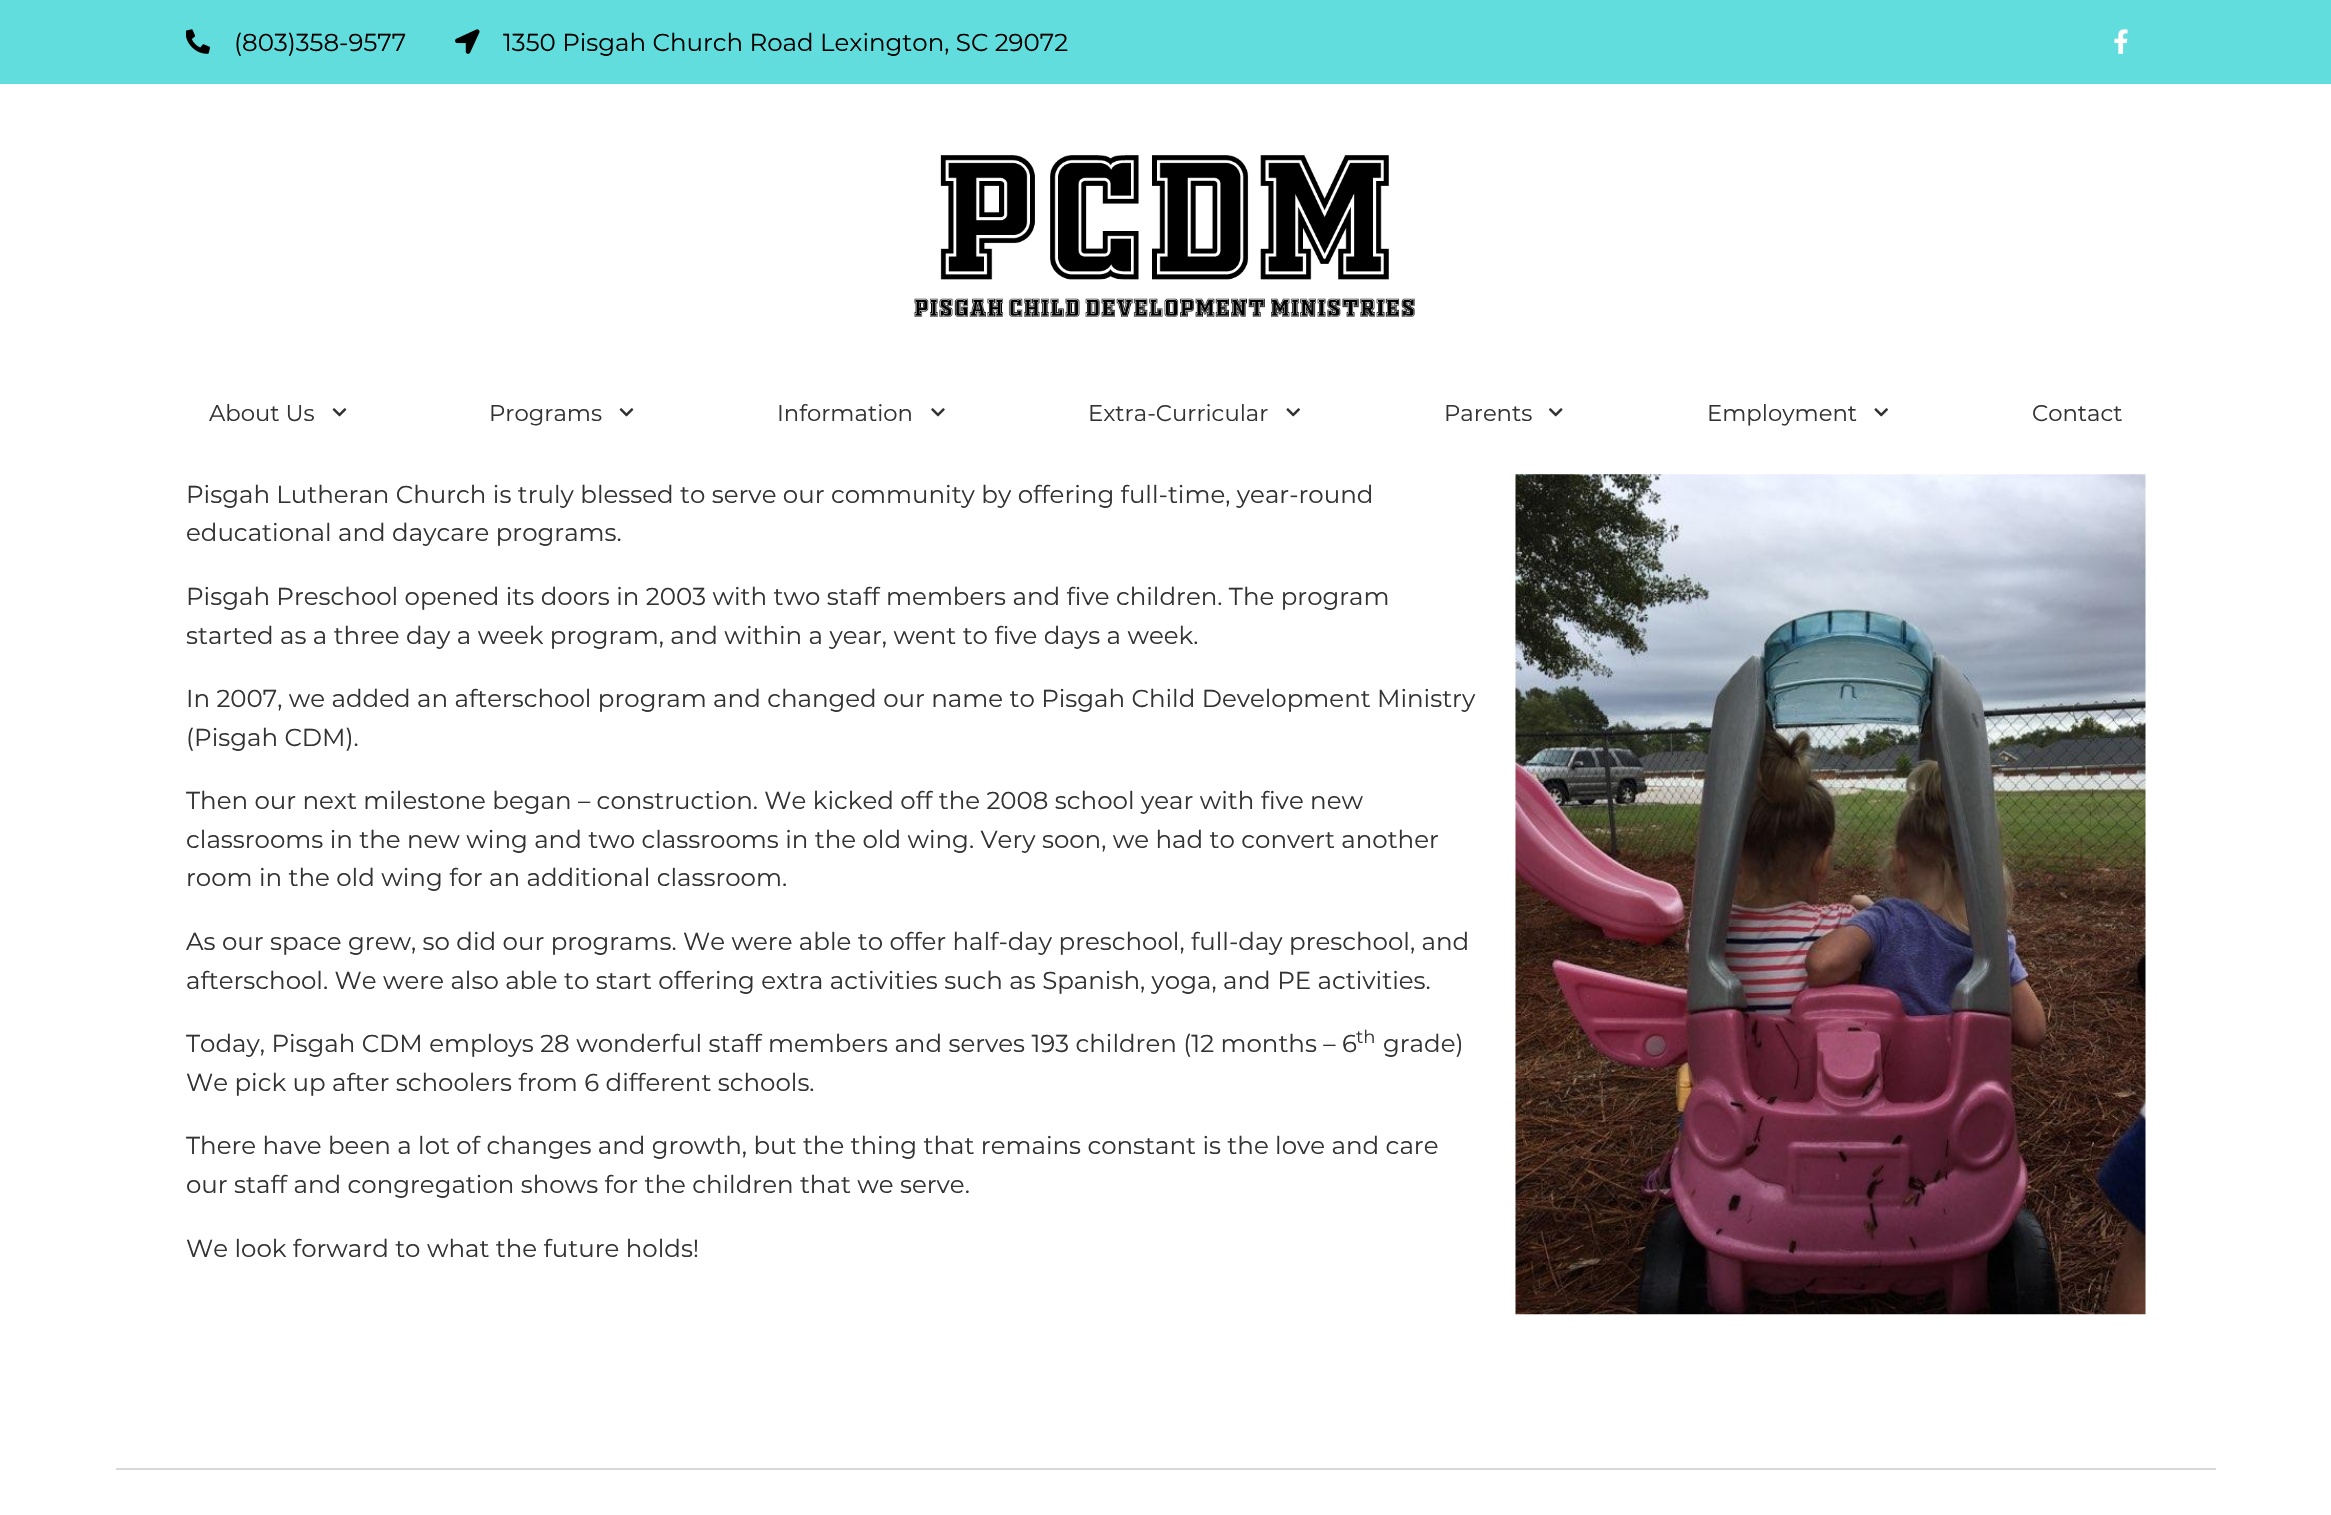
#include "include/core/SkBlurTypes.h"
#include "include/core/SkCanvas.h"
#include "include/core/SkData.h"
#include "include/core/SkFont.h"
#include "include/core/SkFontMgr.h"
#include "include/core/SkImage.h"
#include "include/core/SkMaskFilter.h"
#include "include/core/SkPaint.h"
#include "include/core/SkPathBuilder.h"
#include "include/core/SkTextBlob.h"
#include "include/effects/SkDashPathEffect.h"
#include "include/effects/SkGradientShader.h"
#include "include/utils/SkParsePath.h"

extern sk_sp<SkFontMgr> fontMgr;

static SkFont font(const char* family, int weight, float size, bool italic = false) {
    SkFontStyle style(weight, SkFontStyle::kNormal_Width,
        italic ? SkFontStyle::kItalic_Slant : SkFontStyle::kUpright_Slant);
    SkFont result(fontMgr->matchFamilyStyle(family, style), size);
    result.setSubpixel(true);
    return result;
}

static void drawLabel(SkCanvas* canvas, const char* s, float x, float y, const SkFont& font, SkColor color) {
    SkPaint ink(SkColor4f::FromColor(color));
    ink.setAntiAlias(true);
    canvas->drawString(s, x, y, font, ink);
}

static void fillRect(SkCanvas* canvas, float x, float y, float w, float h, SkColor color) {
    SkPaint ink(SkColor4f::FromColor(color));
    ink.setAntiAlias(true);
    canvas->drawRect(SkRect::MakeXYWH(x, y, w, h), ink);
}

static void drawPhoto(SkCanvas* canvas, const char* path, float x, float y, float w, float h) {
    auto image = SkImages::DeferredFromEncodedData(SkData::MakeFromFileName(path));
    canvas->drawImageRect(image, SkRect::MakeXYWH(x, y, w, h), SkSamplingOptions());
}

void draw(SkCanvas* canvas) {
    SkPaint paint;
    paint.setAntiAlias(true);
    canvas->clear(0xFFFFFFFF);
    fillRect(canvas, 0, 0, 2331, 84, 0xFF61DDDD);
    drawPhoto(canvas, "assets/img1.png", 186, 29, 24, 25);
    SkFont font1 = font("Montserrat", 400, 24.5f);
    drawLabel(canvas, "(803)358-9577", 234, 51, font1, 0xFF000000);
    drawPhoto(canvas, "assets/img2.png", 455, 29, 25, 25);
    drawLabel(canvas, "1350 Pisgah Church Road Lexington, SC 29072", 503, 51, font1, 0xFF000000);
    drawPhoto(canvas, "assets/img3.png", 2114, 29, 14, 25);
    drawPhoto(canvas, "assets/img4.png", 914, 155, 501, 162);
    SkFont font2 = font("Montserrat", 400, 22.75f);
    drawLabel(canvas, "About Us", 209, 421, font2, 0xFF333333);
    drawPhoto(canvas, "assets/img5.png", 332, 408, 15, 9);
    drawLabel(canvas, "Programs", 489, 421, font2, 0xFF333333);
    drawPhoto(canvas, "assets/img5.png", 619, 408, 15, 9);
    drawLabel(canvas, "Information", 777, 421, font2, 0xFF333333);
    drawPhoto(canvas, "assets/img6.png", 931, 408, 14, 9);
    drawLabel(canvas, "Extra-Curricular", 1088, 421, font2, 0xFF333333);
    drawPhoto(canvas, "assets/img7.png", 1286, 408, 14, 9);
    drawLabel(canvas, "Parents", 1444, 421, font2, 0xFF333333);
    drawPhoto(canvas, "assets/img8.png", 1549, 408, 14, 9);
    drawLabel(canvas, "Employment", 1707, 421, font2, 0xFF333333);
    drawPhoto(canvas, "assets/img7.png", 1874, 408, 14, 9);
    drawLabel(canvas, "Contact", 2032, 421, font2, 0xFF333333);
    drawLabel(canvas, "Pisgah Lutheran Church is truly blessed to serve our community by offering full-time, year-round", 186, 503, font1, 0xFF333333);
    drawLabel(canvas, "educational and daycare programs.", 186, 541, font1, 0xFF333333);
    drawLabel(canvas, "Pisgah Preschool opened its doors in 2003 with two staff members and five children. The program", 186, 605, font1, 0xFF333333);
    drawLabel(canvas, "started as a three day a week program, and within a year, went to five days a week.", 186, 644, font1, 0xFF333333);
    drawLabel(canvas, "In 2007, we added an afterschool program and changed our name to Pisgah Child Development Ministry", 186, 707, font1, 0xFF333333);
    drawLabel(canvas, "(Pisgah CDM).", 186, 746, font1, 0xFF333333);
    drawLabel(canvas, "Then our next milestone began – construction. We kicked off the 2008 school year with five new", 186, 809, font1, 0xFF333333);
    drawLabel(canvas, "classrooms in the new wing and two classrooms in the old wing. Very soon, we had to convert another", 186, 848, font1, 0xFF333333);
    drawLabel(canvas, "room in the old wing for an additional classroom.", 186, 886, font1, 0xFF333333);
    drawLabel(canvas, "As our space grew, so did our programs. We were able to offer half-day preschool, full-day preschool, and", 186, 950, font1, 0xFF333333);
    drawLabel(canvas, "afterschool. We were also able to start offering extra activities such as Spanish, yoga, and PE activities.", 186, 989, font1, 0xFF333333);
    drawLabel(canvas, "Today, Pisgah CDM employs 28 wonderful staff members and serves 193 children (12 months – 6", 186, 1052, font1, 0xFF333333);
    SkFont font3 = font("Montserrat", 400, 18);
    drawLabel(canvas, "th", 1356, 1043, font3, 0xFF333333);
    drawLabel(canvas, "grade)", 1383, 1052, font1, 0xFF333333);
    drawLabel(canvas, "We pick up after schoolers from 6 different schools.", 186, 1091, font1, 0xFF333333);
    drawLabel(canvas, "There have been a lot of changes and growth, but the thing that remains constant is the love and care", 186, 1154, font1, 0xFF333333);
    drawLabel(canvas, "our staff and congregation shows for the children that we serve.", 186, 1193, font1, 0xFF333333);
    drawLabel(canvas, "We look forward to what the future holds!", 186, 1257, font1, 0xFF333333);
    drawPhoto(canvas, "assets/img9.png", 1515, 474, 631, 841);
    fillRect(canvas, 116, 1468, 2100, 2, 0xFFD8D8D8);
}
